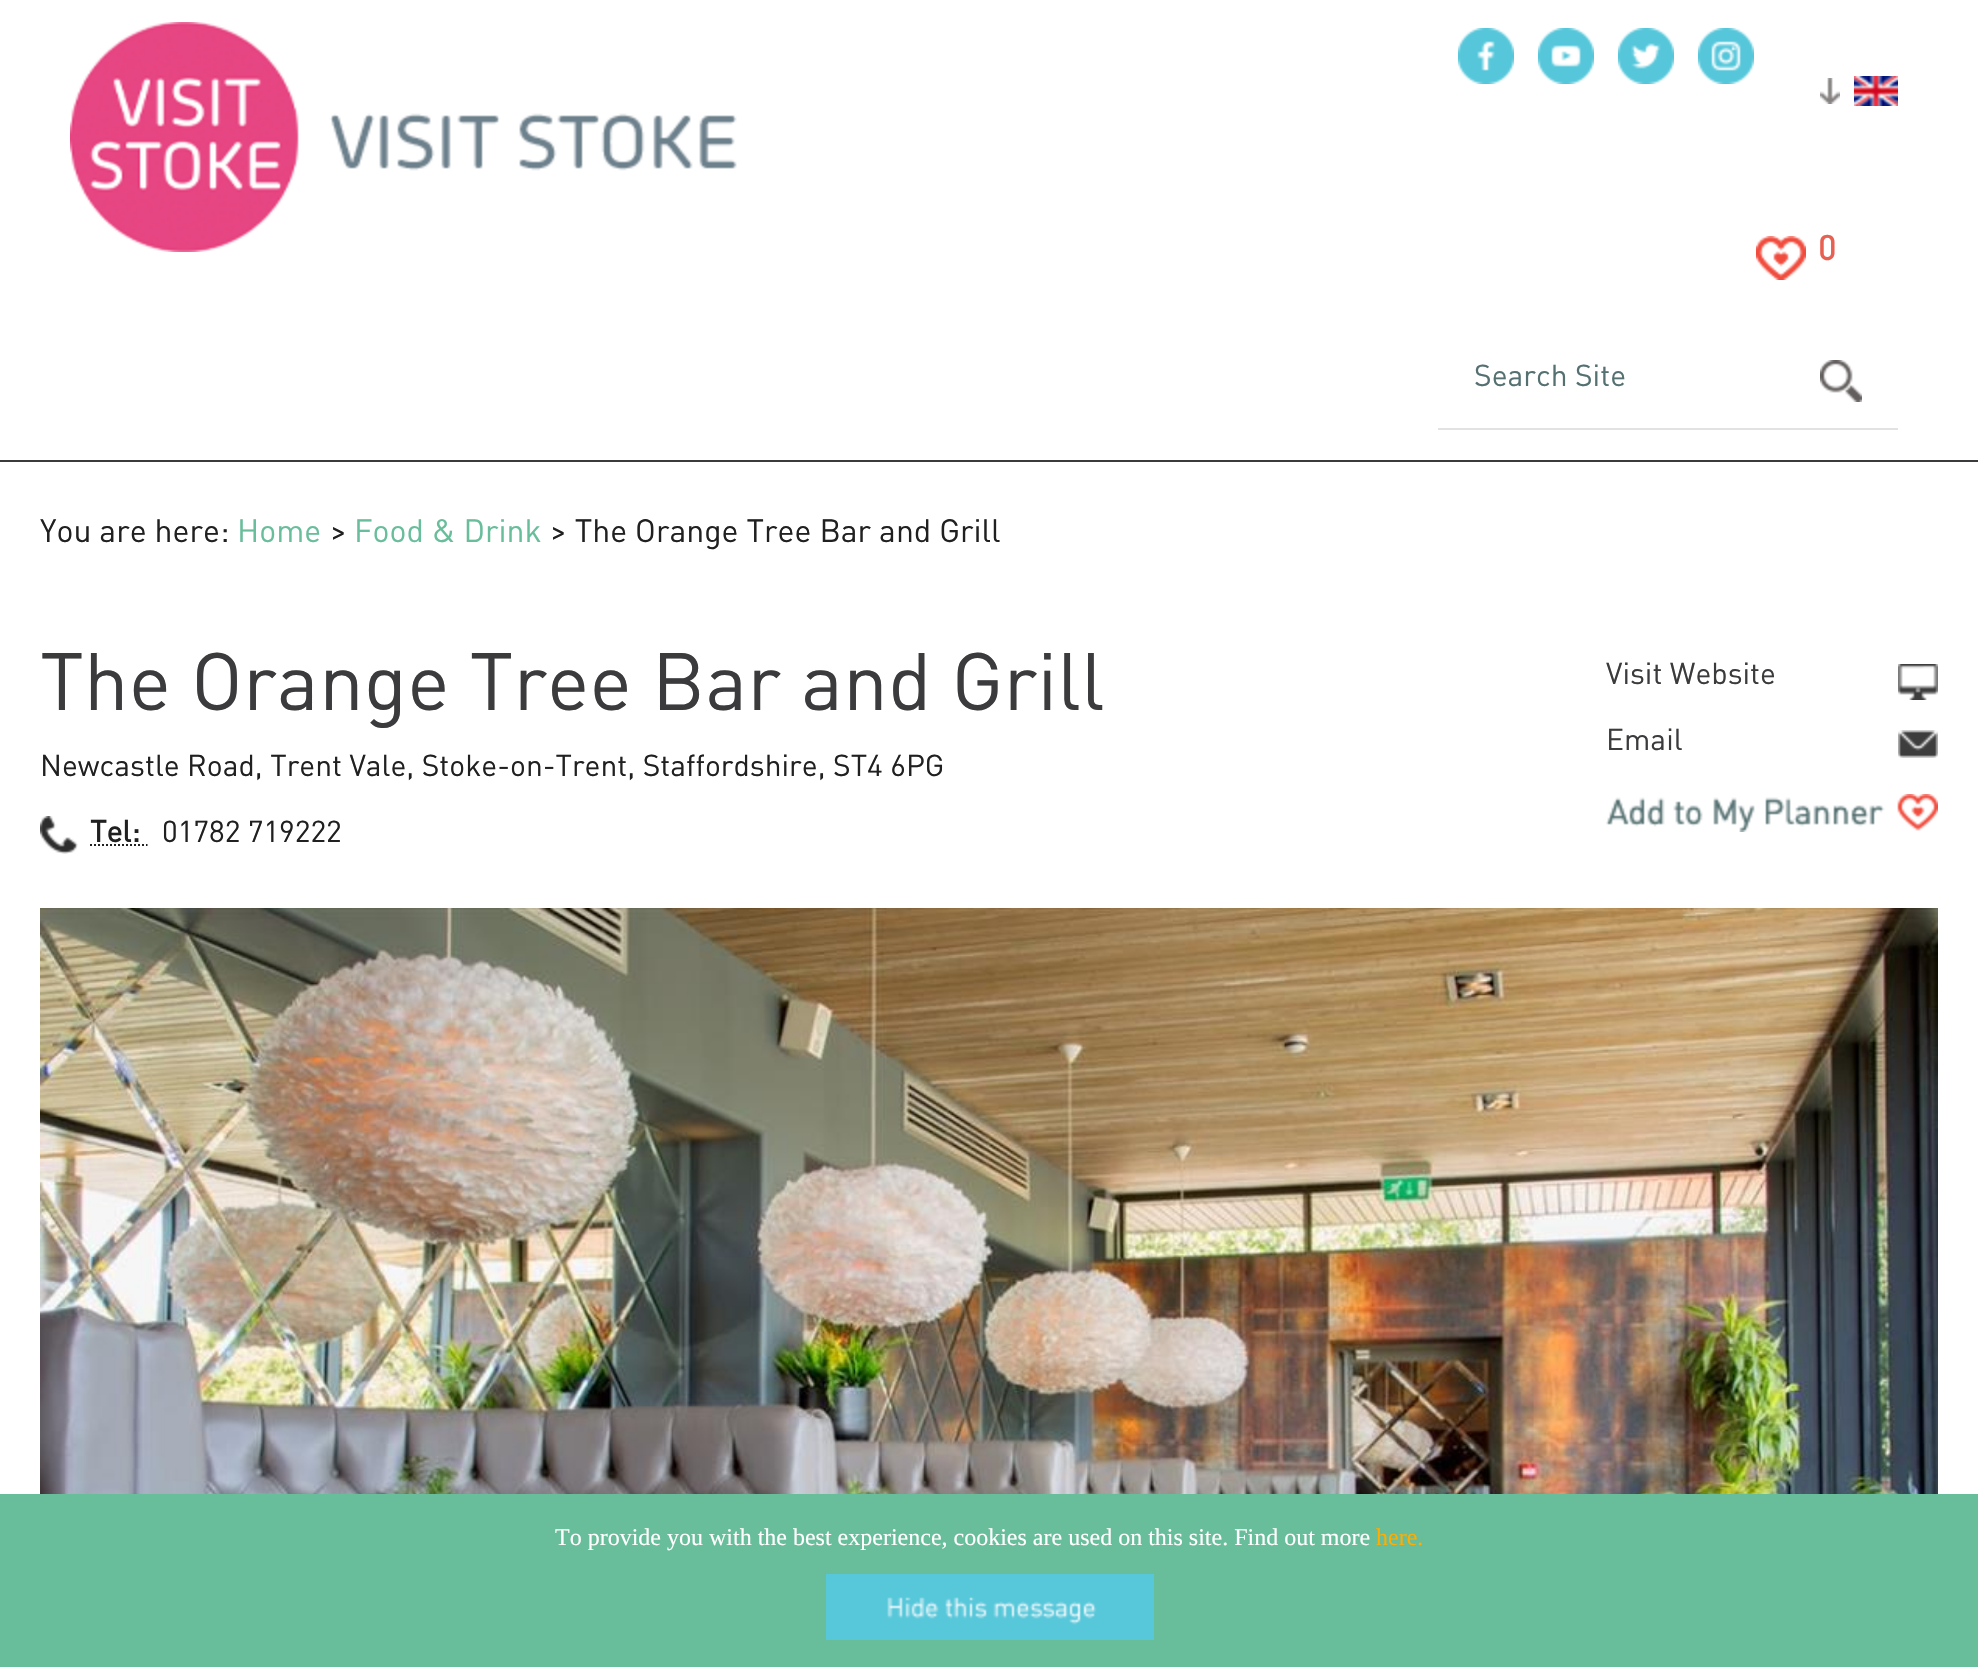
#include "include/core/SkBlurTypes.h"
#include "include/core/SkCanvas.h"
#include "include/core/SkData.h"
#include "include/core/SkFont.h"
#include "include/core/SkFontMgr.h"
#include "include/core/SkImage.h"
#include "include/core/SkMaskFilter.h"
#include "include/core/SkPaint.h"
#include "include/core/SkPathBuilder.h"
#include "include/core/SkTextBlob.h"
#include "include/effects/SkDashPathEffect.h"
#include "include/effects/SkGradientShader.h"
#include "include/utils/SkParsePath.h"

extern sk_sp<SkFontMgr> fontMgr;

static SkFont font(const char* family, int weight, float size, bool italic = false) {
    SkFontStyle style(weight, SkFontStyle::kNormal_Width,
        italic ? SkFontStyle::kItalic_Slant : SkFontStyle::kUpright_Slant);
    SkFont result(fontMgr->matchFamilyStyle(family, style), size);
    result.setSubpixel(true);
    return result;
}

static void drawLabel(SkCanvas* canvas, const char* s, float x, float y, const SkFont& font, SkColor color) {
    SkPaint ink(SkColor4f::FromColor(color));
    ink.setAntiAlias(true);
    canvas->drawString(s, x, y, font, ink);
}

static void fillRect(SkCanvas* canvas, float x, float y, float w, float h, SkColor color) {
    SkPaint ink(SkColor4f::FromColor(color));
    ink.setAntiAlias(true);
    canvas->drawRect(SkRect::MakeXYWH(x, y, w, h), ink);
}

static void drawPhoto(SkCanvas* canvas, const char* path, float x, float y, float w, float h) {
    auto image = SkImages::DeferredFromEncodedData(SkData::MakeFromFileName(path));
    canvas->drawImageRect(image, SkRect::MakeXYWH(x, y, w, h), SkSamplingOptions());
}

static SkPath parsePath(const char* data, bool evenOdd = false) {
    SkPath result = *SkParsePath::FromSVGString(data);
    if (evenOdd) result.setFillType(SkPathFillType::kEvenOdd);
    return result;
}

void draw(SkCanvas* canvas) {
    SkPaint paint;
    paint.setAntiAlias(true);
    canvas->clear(0xFFFFFFFF);
    fillRect(canvas, 0, 460, 1978, 2, 0xFF3B3B3D);
    drawPhoto(canvas, "assets/img1.png", 70, 22, 667, 230);
    drawPhoto(canvas, "assets/img2.png", 1458, 28, 56, 56);
    drawPhoto(canvas, "assets/img3.png", 1538, 28, 56, 56);
    drawPhoto(canvas, "assets/img4.png", 1618, 28, 56, 56);
    drawPhoto(canvas, "assets/img5.png", 1698, 28, 56, 56);
    drawPhoto(canvas, "assets/img6.png", 1820, 78, 20, 26);
    drawPhoto(canvas, "assets/img7.png", 1854, 76, 44, 30);
    drawPhoto(canvas, "assets/img8.png", 1756, 236, 50, 44);
    SkFont font1 = font("Din", 700, 34);
    drawLabel(canvas, "0", 1818, 260, font1, 0xFFE86052);
    fillRect(canvas, 1438, 428, 460, 2, 0xFFE2E2E2);
    SkFont font2 = font("Din", 400, 30);
    drawLabel(canvas, "Search Site", 1474, 386, font2, 0xFF557071);
    drawPhoto(canvas, "assets/img9.png", 1820, 360, 42, 42);
    SkFont font3 = font("Din", 400, 32);
    drawLabel(canvas, "You are here:", 40, 542, font3, 0xFF202020);
    drawLabel(canvas, "Home", 237, 542, font3, 0xFF68BD9B);
    drawLabel(canvas, ">", 330, 542, font3, 0xFF202020);
    drawLabel(canvas, "Food & Drink", 354, 542, font3, 0xFF68BD9B);
    drawLabel(canvas, "> The Orange Tree Bar and Grill", 550, 542, font3, 0xFF202020);
    SkFont font4 = font("Din", 400, 80);
    drawLabel(canvas, "The Orange Tree Bar and Grill", 40, 710, font4, 0xFF3B3B3D);
    drawLabel(canvas, "Newcastle Road, Trent Vale, Stoke-on-Trent, Staffordshire, ST4 6PG", 40, 776, font2, 0xFF202020);
    drawPhoto(canvas, "assets/img10.png", 40, 816, 38, 38);
    SkFont font5 = font("Din", 700, 30);
    drawLabel(canvas, "Tel:", 90, 842, font5, 0xFF202020);
    paint.setStroke(true);
    paint.setStrokeWidth(2);
    paint.setColor(0xFF202020);
    paint.setPathEffect(SkDashPathEffect::Make({{2, 2}}, 0));
    canvas->drawPath(parsePath("M90 845H147.5"), paint);
    paint.setPathEffect(nullptr);
    drawLabel(canvas, "01782 719222", 162, 842, font2, 0xFF202020);
    drawPhoto(canvas, "assets/img11.png", 1898, 664, 40, 36);
    drawLabel(canvas, "Visit Website", 1606, 684, font2, 0xFF3B3B3D);
    drawPhoto(canvas, "assets/img12.png", 1898, 730, 40, 28);
    drawLabel(canvas, "Email", 1606, 750, font2, 0xFF3B3B3D);
    drawPhoto(canvas, "assets/img13.png", 1606, 794, 332, 38);
    drawPhoto(canvas, "assets/img14.png", 40, 908, 1898, 586);
    fillRect(canvas, 0, 1494, 1978, 173, 0xFF68BD9B);
    SkFont font6 = font("Liberation Serif", 400, 24);
    drawLabel(canvas, "To provide you with the best experience, cookies are used on this site. Find out more", 555, 1545, font6, 0xFFFFFFFF);
    drawLabel(canvas, "here.", 1376, 1545, font6, 0xFFFFAD00);
    drawPhoto(canvas, "assets/img15.png", 826, 1574, 328, 66);
}
